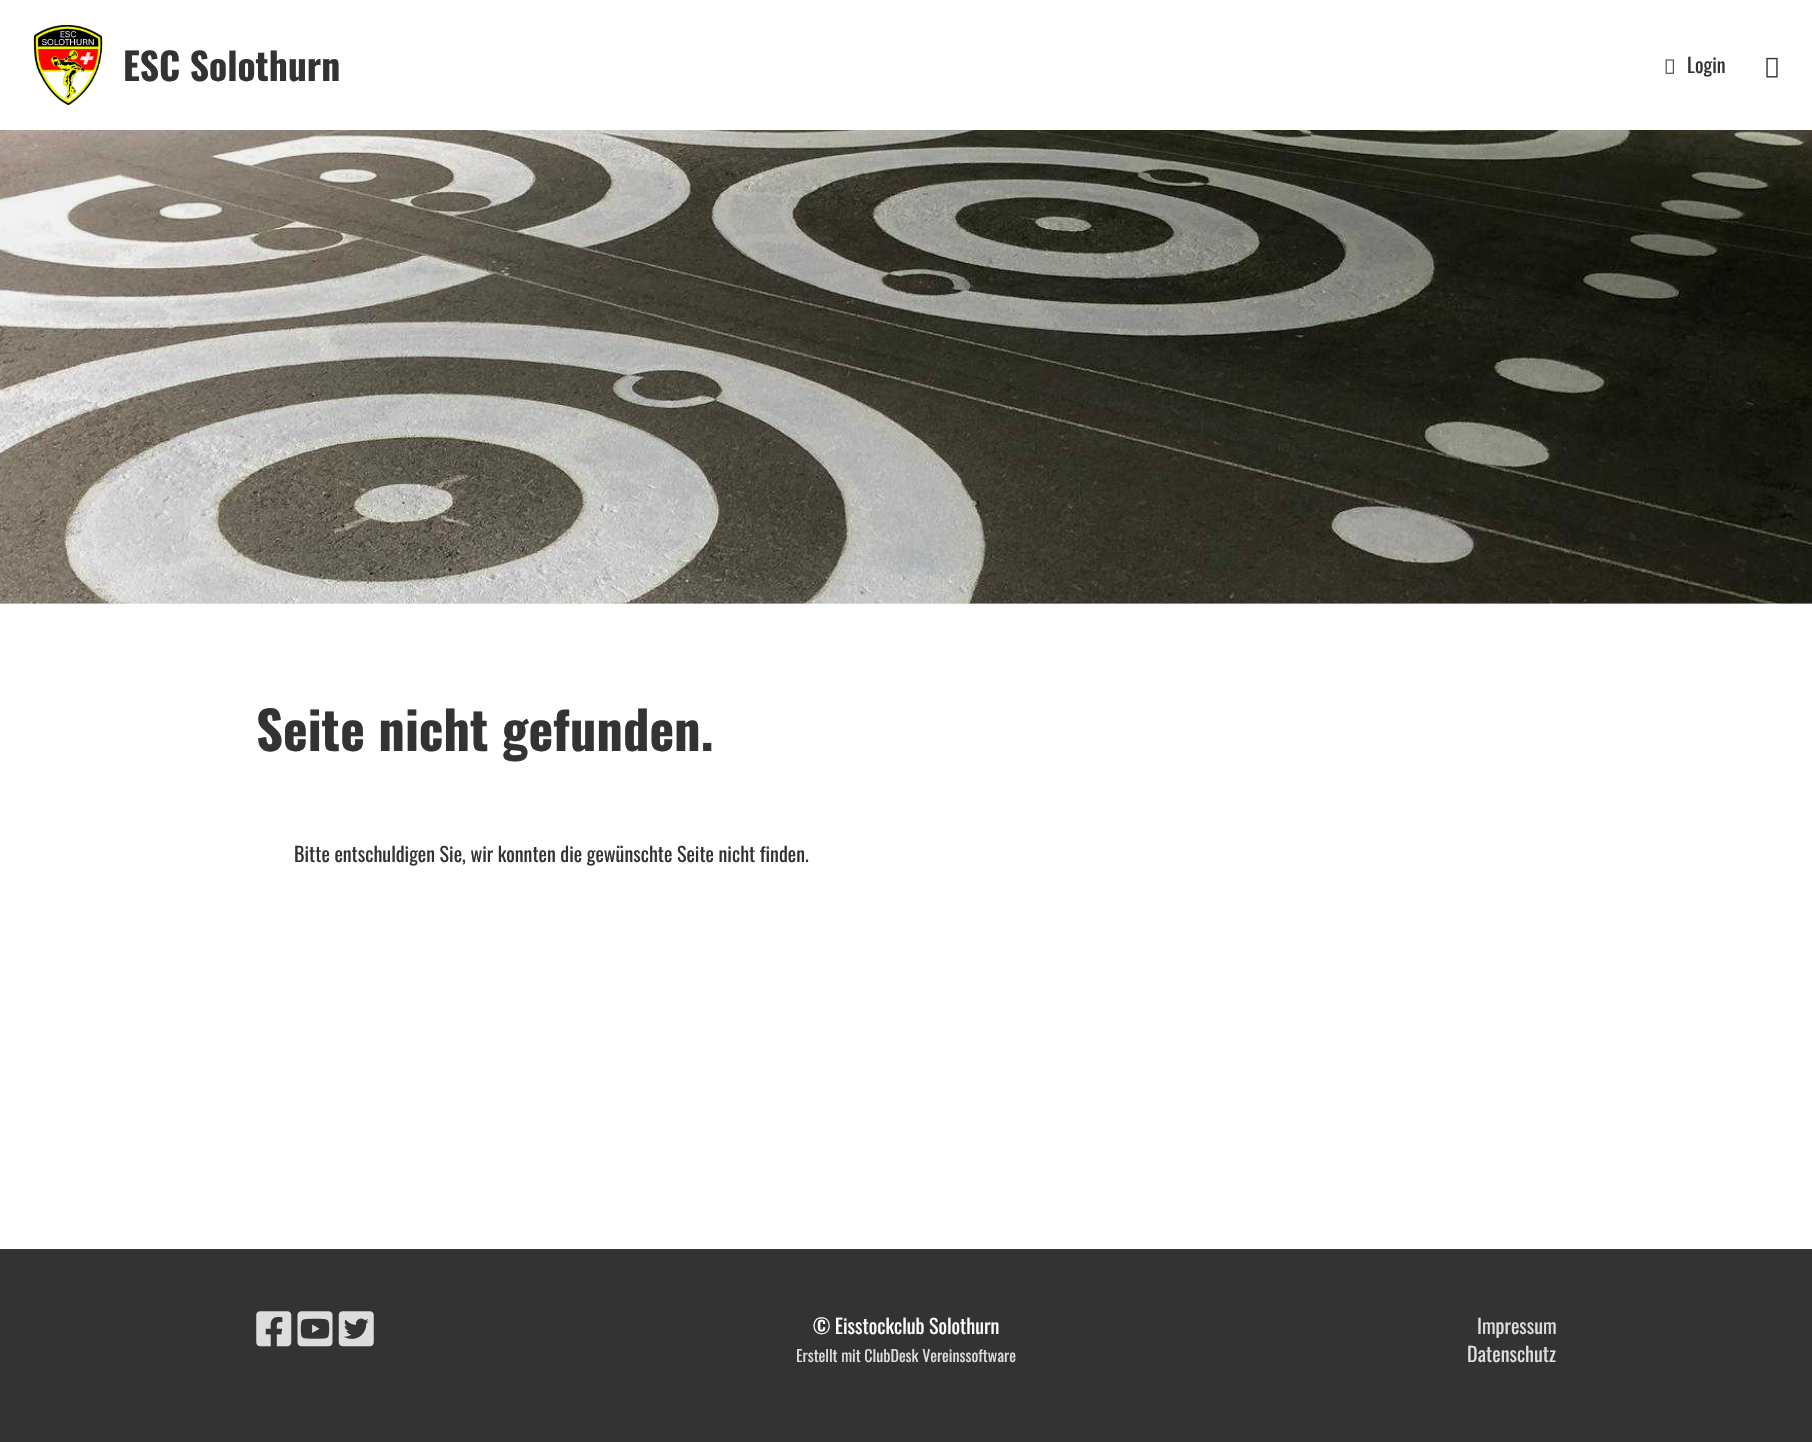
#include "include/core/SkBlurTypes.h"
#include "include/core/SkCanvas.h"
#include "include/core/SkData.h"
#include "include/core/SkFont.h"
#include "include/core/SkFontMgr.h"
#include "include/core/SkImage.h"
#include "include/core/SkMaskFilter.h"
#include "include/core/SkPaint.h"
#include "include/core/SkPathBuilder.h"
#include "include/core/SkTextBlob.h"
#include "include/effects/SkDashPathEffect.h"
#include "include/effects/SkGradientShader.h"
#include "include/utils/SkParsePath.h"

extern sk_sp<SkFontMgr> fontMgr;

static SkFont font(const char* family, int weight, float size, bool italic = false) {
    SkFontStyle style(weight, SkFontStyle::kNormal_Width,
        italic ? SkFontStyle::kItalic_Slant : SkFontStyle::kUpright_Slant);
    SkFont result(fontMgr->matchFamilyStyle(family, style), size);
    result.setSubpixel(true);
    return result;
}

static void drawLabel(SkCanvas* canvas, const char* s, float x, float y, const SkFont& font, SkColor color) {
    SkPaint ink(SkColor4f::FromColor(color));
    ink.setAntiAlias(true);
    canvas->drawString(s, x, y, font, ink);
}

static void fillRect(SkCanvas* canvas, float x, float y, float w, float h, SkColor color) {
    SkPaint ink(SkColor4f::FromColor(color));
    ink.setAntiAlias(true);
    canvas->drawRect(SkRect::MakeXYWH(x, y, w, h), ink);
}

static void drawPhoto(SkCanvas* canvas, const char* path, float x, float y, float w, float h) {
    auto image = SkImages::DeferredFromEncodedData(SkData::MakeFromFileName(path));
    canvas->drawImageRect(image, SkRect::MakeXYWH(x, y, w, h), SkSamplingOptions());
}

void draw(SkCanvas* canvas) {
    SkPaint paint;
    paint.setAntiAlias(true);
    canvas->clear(0xFFFFFFFF);
    fillRect(canvas, 0, 603, 1812, 1, 0xFFF2F2F2);
    drawPhoto(canvas, "assets/img1.png", 33, 25, 70, 80);
    SkFont font1 = font("Oswald", 700, 37.5f);
    drawLabel(canvas, "ESC Solothurn", 123, 81, font1, 0xFF333333);
    drawPhoto(canvas, "assets/img2.png", 1665, 59, 9, 15);
    SkFont font2 = font("Oswald", 400, 20);
    drawLabel(canvas, "Login", 1687, 73, font2, 0xFF333333);
    drawPhoto(canvas, "assets/img3.png", 1766, 57, 12, 21);
    drawPhoto(canvas, "assets/img4.png", 0, 130, 1812, 474);
    SkFont font3 = font("Oswald", 700, 52.5f);
    drawLabel(canvas, "Seite nicht gefunden.", 256, 751, font3, 0xFF333333);
    drawLabel(canvas, "Bitte entschuldigen Sie, wir konnten die gewünschte Seite nicht finden.", 294, 862, font2, 0xFF333333);
    fillRect(canvas, 0, 1249, 1812, 193, 0xFF333333);
    drawPhoto(canvas, "assets/img5.png", 256, 1311, 36, 36);
    drawPhoto(canvas, "assets/img6.png", 297, 1311, 36, 36);
    drawPhoto(canvas, "assets/img7.png", 338, 1311, 36, 36);
    drawLabel(canvas, "© Eisstockclub Solothurn", 813, 1334, font2, 0xFFFFFFFF);
    SkFont font4 = font("Oswald", 400, 16);
    drawLabel(canvas, "Erstellt mit ClubDesk Vereinssoftware", 796, 1362, font4, 0xFFDDDDDD);
    drawLabel(canvas, "Impressum", 1477, 1334, font2, 0xFFDDDDDD);
    drawLabel(canvas, "Datenschutz", 1467, 1362, font2, 0xFFDDDDDD);
}
